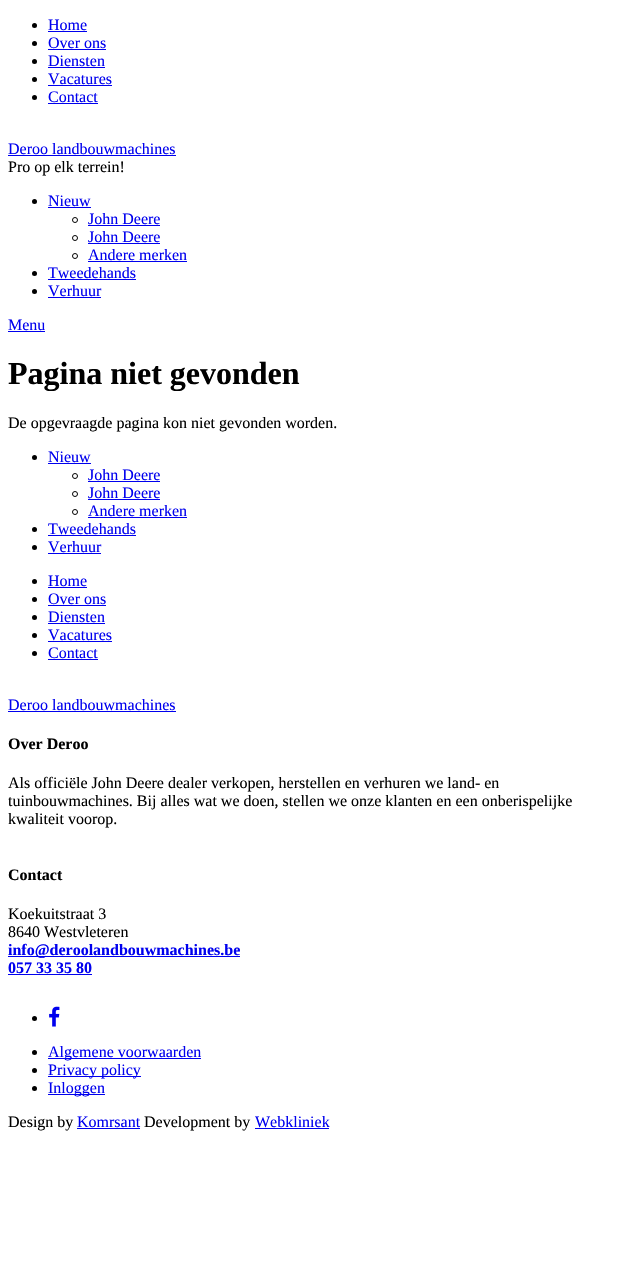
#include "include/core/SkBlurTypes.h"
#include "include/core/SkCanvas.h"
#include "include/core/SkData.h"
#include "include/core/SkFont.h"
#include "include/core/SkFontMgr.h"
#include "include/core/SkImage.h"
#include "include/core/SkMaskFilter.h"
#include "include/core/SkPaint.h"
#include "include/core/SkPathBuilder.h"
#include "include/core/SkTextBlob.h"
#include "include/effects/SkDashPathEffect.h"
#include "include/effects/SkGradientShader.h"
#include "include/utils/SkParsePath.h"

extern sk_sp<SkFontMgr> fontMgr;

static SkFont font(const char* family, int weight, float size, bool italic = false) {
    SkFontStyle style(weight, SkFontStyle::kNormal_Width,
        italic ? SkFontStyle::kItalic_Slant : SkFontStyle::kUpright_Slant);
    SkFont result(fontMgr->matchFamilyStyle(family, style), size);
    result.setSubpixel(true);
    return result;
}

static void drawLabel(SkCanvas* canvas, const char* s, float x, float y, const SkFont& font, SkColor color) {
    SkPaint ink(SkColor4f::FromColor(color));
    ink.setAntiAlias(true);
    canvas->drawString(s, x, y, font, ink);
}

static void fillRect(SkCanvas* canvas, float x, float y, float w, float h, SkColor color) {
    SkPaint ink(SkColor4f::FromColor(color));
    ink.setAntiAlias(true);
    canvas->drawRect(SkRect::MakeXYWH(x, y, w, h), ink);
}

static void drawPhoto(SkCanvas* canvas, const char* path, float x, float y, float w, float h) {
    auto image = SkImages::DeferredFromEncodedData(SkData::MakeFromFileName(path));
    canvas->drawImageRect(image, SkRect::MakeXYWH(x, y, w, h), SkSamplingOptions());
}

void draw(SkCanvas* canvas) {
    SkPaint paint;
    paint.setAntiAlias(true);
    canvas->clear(0xFFFFFFFF);
    paint.setColor(0xFF000000);
    canvas->drawCircle(34.5f, 25.5f, 2.5f, paint);
    SkFont font1 = font("Liberation Serif", 400, 16);
    drawLabel(canvas, "Home", 48, 30, font1, 0xFF0000EE);
    fillRect(canvas, 48, 31, 39, 1, 0xFF0000EE);
    canvas->drawCircle(34.5f, 43.5f, 2.5f, paint);
    drawLabel(canvas, "Over ons", 48, 48, font1, 0xFF0000EE);
    fillRect(canvas, 48, 49, 58, 1, 0xFF0000EE);
    canvas->drawCircle(34.5f, 61.5f, 2.5f, paint);
    drawLabel(canvas, "Diensten", 48, 66, font1, 0xFF0000EE);
    fillRect(canvas, 48, 67, 57, 1, 0xFF0000EE);
    canvas->drawCircle(34.5f, 79.5f, 2.5f, paint);
    drawLabel(canvas, "Vacatures", 48, 84, font1, 0xFF0000EE);
    fillRect(canvas, 48, 85, 64, 1, 0xFF0000EE);
    canvas->drawCircle(34.5f, 97.5f, 2.5f, paint);
    drawLabel(canvas, "Contact", 48, 102, font1, 0xFF0000EE);
    fillRect(canvas, 48, 103, 50, 1, 0xFF0000EE);
    drawLabel(canvas, "Deroo landbouwmachines", 8, 154, font1, 0xFF0000EE);
    fillRect(canvas, 8, 155, 168, 1, 0xFF0000EE);
    drawLabel(canvas, "Pro op elk terrein!", 8, 172, font1, 0xFF000000);
    canvas->drawCircle(34.5f, 201.5f, 2.5f, paint);
    drawLabel(canvas, "Nieuw", 48, 206, font1, 0xFF0000EE);
    fillRect(canvas, 48, 207, 43, 1, 0xFF0000EE);
    paint.setStroke(true);
    paint.setStrokeWidth(1);
    canvas->drawCircle(75, 220, 2.5f, paint);
    drawLabel(canvas, "John Deere", 88, 224, font1, 0xFF0000EE);
    fillRect(canvas, 88, 225, 72, 1, 0xFF0000EE);
    canvas->drawCircle(75, 238, 2.5f, paint);
    drawLabel(canvas, "John Deere", 88, 242, font1, 0xFF0000EE);
    fillRect(canvas, 88, 243, 72, 1, 0xFF0000EE);
    canvas->drawCircle(75, 256, 2.5f, paint);
    drawLabel(canvas, "Andere merken", 88, 260, font1, 0xFF0000EE);
    fillRect(canvas, 88, 261, 99, 1, 0xFF0000EE);
    paint.setStroke(false);
    canvas->drawCircle(34.5f, 273.5f, 2.5f, paint);
    drawLabel(canvas, "Tweedehands", 48, 278, font1, 0xFF0000EE);
    fillRect(canvas, 48, 279, 88, 1, 0xFF0000EE);
    canvas->drawCircle(34.5f, 291.5f, 2.5f, paint);
    drawLabel(canvas, "Verhuur", 48, 296, font1, 0xFF0000EE);
    fillRect(canvas, 48, 297, 53, 1, 0xFF0000EE);
    drawLabel(canvas, "Menu", 8, 330, font1, 0xFF0000EE);
    fillRect(canvas, 8, 331, 37, 1, 0xFF0000EE);
    SkFont font2 = font("Liberation Serif", 700, 32);
    drawLabel(canvas, "Pagina niet gevonden", 8, 384, font2, 0xFF000000);
    drawLabel(canvas, "De opgevraagde pagina kon niet gevonden worden.", 8, 428, font1, 0xFF000000);
    canvas->drawCircle(34.5f, 457.5f, 2.5f, paint);
    drawLabel(canvas, "Nieuw", 48, 462, font1, 0xFF0000EE);
    fillRect(canvas, 48, 463, 43, 1, 0xFF0000EE);
    paint.setStroke(true);
    canvas->drawCircle(75, 476, 2.5f, paint);
    drawLabel(canvas, "John Deere", 88, 480, font1, 0xFF0000EE);
    fillRect(canvas, 88, 481, 72, 1, 0xFF0000EE);
    canvas->drawCircle(75, 494, 2.5f, paint);
    drawLabel(canvas, "John Deere", 88, 498, font1, 0xFF0000EE);
    fillRect(canvas, 88, 499, 72, 1, 0xFF0000EE);
    canvas->drawCircle(75, 512, 2.5f, paint);
    drawLabel(canvas, "Andere merken", 88, 516, font1, 0xFF0000EE);
    fillRect(canvas, 88, 517, 99, 1, 0xFF0000EE);
    paint.setStroke(false);
    canvas->drawCircle(34.5f, 529.5f, 2.5f, paint);
    drawLabel(canvas, "Tweedehands", 48, 534, font1, 0xFF0000EE);
    fillRect(canvas, 48, 535, 88, 1, 0xFF0000EE);
    canvas->drawCircle(34.5f, 547.5f, 2.5f, paint);
    drawLabel(canvas, "Verhuur", 48, 552, font1, 0xFF0000EE);
    fillRect(canvas, 48, 553, 53, 1, 0xFF0000EE);
    canvas->drawCircle(34.5f, 581.5f, 2.5f, paint);
    drawLabel(canvas, "Home", 48, 586, font1, 0xFF0000EE);
    fillRect(canvas, 48, 587, 39, 1, 0xFF0000EE);
    canvas->drawCircle(34.5f, 599.5f, 2.5f, paint);
    drawLabel(canvas, "Over ons", 48, 604, font1, 0xFF0000EE);
    fillRect(canvas, 48, 605, 58, 1, 0xFF0000EE);
    canvas->drawCircle(34.5f, 617.5f, 2.5f, paint);
    drawLabel(canvas, "Diensten", 48, 622, font1, 0xFF0000EE);
    fillRect(canvas, 48, 623, 57, 1, 0xFF0000EE);
    canvas->drawCircle(34.5f, 635.5f, 2.5f, paint);
    drawLabel(canvas, "Vacatures", 48, 640, font1, 0xFF0000EE);
    fillRect(canvas, 48, 641, 64, 1, 0xFF0000EE);
    canvas->drawCircle(34.5f, 653.5f, 2.5f, paint);
    drawLabel(canvas, "Contact", 48, 658, font1, 0xFF0000EE);
    fillRect(canvas, 48, 659, 50, 1, 0xFF0000EE);
    drawLabel(canvas, "Deroo landbouwmachines", 8, 710, font1, 0xFF0000EE);
    fillRect(canvas, 8, 711, 168, 1, 0xFF0000EE);
    SkFont font3 = font("Liberation Serif", 700, 16);
    drawLabel(canvas, "Over Deroo", 8, 749, font3, 0xFF000000);
    drawLabel(canvas, "Als officiële John Deere dealer verkopen, herstellen en verhuren we land- en", 8, 788, font1, 0xFF000000);
    drawLabel(canvas, "tuinbouwmachines. Bij alles wat we doen, stellen we onze klanten en een onberispelijke", 8, 806, font1, 0xFF000000);
    drawLabel(canvas, "kwaliteit voorop.", 8, 824, font1, 0xFF000000);
    drawLabel(canvas, "Contact", 8, 880, font3, 0xFF000000);
    drawLabel(canvas, "Koekuitstraat 3", 8, 919, font1, 0xFF000000);
    drawLabel(canvas, "8640 Westvleteren", 8, 937, font1, 0xFF000000);
    fillRect(canvas, 8, 956, 232, 1, 0xFF0000EE);
    drawLabel(canvas, "info@deroolandbouwmachines.be", 8, 955, font3, 0xFF0000EE);
    drawLabel(canvas, "057 33 35 80", 8, 973, font3, 0xFF0000EE);
    fillRect(canvas, 8, 974, 84, 1, 0xFF0000EE);
    canvas->drawCircle(34.5f, 1018.5f, 2.5f, paint);
    drawPhoto(canvas, "assets/img1.png", 49, 1006, 11, 21);
    canvas->drawCircle(34.5f, 1052.5f, 2.5f, paint);
    fillRect(canvas, 48, 1058, 153, 1, 0xFF0000EE);
    drawLabel(canvas, "Algemene voorwaarden", 48, 1057, font1, 0xFF0000EE);
    canvas->drawCircle(34.5f, 1070.5f, 2.5f, paint);
    fillRect(canvas, 48, 1076, 93, 1, 0xFF0000EE);
    drawLabel(canvas, "Privacy policy", 48, 1075, font1, 0xFF0000EE);
    canvas->drawCircle(34.5f, 1088.5f, 2.5f, paint);
    fillRect(canvas, 48, 1094, 57, 1, 0xFF0000EE);
    drawLabel(canvas, "Inloggen", 48, 1093, font1, 0xFF0000EE);
    drawLabel(canvas, "Design by", 8, 1127, font1, 0xFF000000);
    drawLabel(canvas, "Komrsant", 77, 1127, font1, 0xFF0000EE);
    fillRect(canvas, 77, 1128, 63, 1, 0xFF0000EE);
    drawLabel(canvas, "Development by", 144, 1127, font1, 0xFF000000);
    drawLabel(canvas, "Webkliniek", 255, 1127, font1, 0xFF0000EE);
    fillRect(canvas, 255, 1128, 74, 1, 0xFF0000EE);
}
